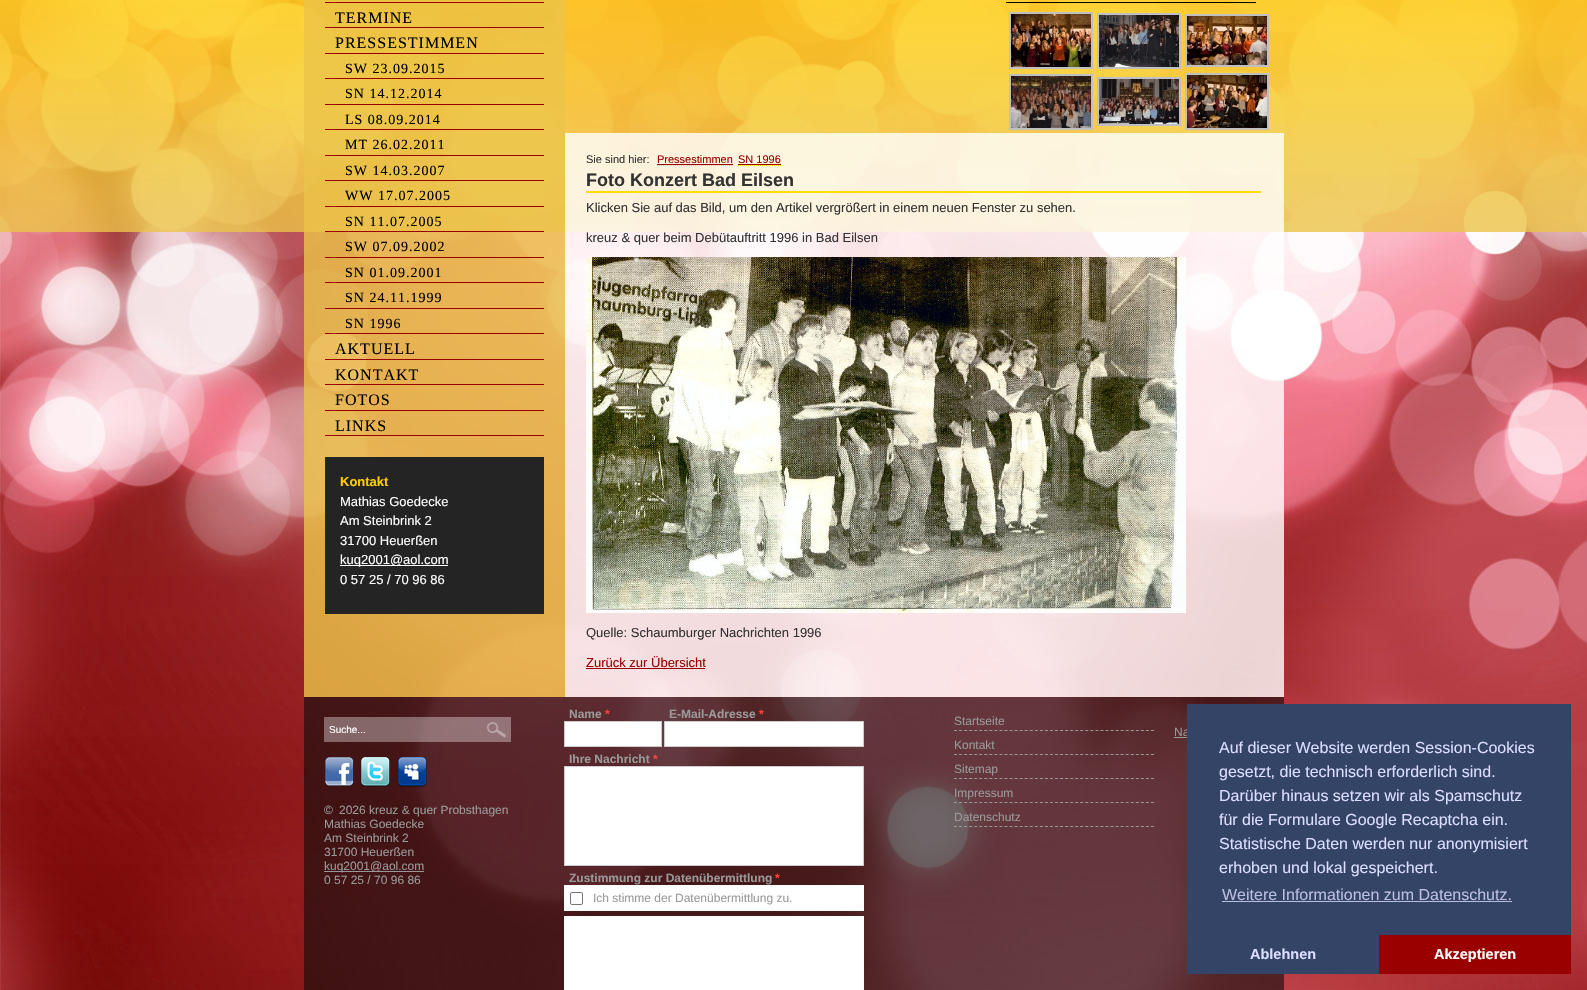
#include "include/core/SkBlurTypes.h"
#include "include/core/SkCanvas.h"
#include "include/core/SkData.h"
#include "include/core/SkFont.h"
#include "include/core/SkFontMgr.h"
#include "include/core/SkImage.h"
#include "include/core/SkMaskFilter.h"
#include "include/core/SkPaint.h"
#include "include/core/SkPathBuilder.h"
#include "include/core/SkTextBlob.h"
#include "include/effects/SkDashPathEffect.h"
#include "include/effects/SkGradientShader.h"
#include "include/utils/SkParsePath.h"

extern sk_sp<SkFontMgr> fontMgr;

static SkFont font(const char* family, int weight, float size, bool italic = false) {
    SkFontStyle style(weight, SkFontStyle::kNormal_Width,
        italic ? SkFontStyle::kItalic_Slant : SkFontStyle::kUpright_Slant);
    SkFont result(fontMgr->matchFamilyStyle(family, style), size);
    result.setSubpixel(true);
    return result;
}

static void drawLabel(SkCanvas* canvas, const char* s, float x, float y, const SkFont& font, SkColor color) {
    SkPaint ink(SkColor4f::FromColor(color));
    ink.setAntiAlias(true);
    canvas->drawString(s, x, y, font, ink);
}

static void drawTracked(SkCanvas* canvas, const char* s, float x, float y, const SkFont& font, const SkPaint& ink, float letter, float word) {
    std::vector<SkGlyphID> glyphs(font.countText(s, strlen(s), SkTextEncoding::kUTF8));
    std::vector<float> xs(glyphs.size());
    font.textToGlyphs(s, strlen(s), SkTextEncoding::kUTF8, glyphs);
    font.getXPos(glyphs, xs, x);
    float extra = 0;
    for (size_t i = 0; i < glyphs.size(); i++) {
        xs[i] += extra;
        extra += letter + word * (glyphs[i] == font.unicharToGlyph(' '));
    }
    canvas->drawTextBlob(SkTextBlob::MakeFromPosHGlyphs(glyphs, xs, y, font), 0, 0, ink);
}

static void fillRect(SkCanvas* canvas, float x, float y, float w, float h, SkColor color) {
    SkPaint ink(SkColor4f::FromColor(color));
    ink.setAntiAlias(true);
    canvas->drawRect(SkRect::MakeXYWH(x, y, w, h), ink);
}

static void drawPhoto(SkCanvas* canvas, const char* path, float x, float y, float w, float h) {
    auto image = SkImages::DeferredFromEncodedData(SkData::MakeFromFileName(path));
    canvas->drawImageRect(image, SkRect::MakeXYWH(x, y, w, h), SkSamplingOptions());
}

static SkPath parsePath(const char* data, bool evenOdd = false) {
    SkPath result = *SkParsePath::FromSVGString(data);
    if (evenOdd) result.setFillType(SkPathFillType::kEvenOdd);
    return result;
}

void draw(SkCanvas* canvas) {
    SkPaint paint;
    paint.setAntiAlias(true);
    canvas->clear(0xFFFFFFFF);
    drawPhoto(canvas, "assets/img1.png", 0, 0, 1587, 990);
    drawPhoto(canvas, "assets/img2.png", 0, 0, 1587, 232);
    fillRect(canvas, 304, 0, 261, 697, 0xCCEBC348);
    fillRect(canvas, 325, 2, 219, 1, 0xFF990000);
    fillRect(canvas, 325, 27, 219, 1, 0xFF990000);
    SkFont font1 = font("Liberation Serif", 400, 16);
    paint.setColor(0xFF000000);
    drawTracked(canvas, "TERMINE", 335, 23, font1, paint, 1, 0);
    fillRect(canvas, 325, 53, 219, 1, 0xFF990000);
    drawTracked(canvas, "PRESSESTIMMEN", 335, 48, font1, paint, 1, 0);
    fillRect(canvas, 325, 78, 219, 1, 0xFF990000);
    SkFont font2 = font("Liberation Serif", 400, 14);
    drawTracked(canvas, "SW 23.09.2015", 345, 73, font2, paint, 1, 0);
    fillRect(canvas, 325, 104, 219, 1, 0xFF990000);
    drawTracked(canvas, "SN 14.12.2014", 345, 98, font2, paint, 1, 0);
    fillRect(canvas, 325, 129, 219, 1, 0xFF990000);
    drawTracked(canvas, "LS 08.09.2014", 345, 124, font2, paint, 1, 0);
    fillRect(canvas, 325, 155, 219, 1, 0xFF990000);
    drawTracked(canvas, "MT 26.02.2011", 345, 149, font2, paint, 1, 0);
    fillRect(canvas, 325, 180, 219, 1, 0xFF990000);
    drawTracked(canvas, "SW 14.03.2007", 345, 175, font2, paint, 1, 0);
    fillRect(canvas, 325, 206, 219, 1, 0xFF990000);
    drawTracked(canvas, "WW 17.07.2005", 345, 200, font2, paint, 1, 0);
    fillRect(canvas, 325, 231, 219, 1, 0xFF990000);
    drawTracked(canvas, "SN 11.07.2005", 345, 226, font2, paint, 1, 0);
    fillRect(canvas, 325, 257, 219, 1, 0xFF990000);
    drawTracked(canvas, "SW 07.09.2002", 345, 251, font2, paint, 1, 0);
    fillRect(canvas, 325, 282, 219, 1, 0xFF990000);
    drawTracked(canvas, "SN 01.09.2001", 345, 277, font2, paint, 1, 0);
    fillRect(canvas, 325, 308, 219, 1, 0xFF990000);
    drawTracked(canvas, "SN 24.11.1999", 345, 302, font2, paint, 1, 0);
    fillRect(canvas, 325, 333, 219, 1, 0xFF990000);
    drawTracked(canvas, "SN 1996", 345, 328, font2, paint, 1, 0);
    fillRect(canvas, 325, 359, 219, 1, 0xFF990000);
    drawTracked(canvas, "AKTUELL", 335, 354, font1, paint, 1, 0);
    fillRect(canvas, 325, 384, 219, 1, 0xFF990000);
    drawTracked(canvas, "KONTAKT", 335, 380, font1, paint, 1, 0);
    fillRect(canvas, 325, 410, 219, 1, 0xFF990000);
    drawTracked(canvas, "FOTOS", 335, 405, font1, paint, 1, 0);
    fillRect(canvas, 325, 435, 219, 1, 0xFF990000);
    drawTracked(canvas, "LINKS", 335, 431, font1, paint, 1, 0);
    fillRect(canvas, 325, 457, 219, 157, 0xFF242424);
    SkFont font3 = font("Liberation Sans", 700, 13);
    drawLabel(canvas, "Kontakt", 340, 486, font3, 0xFFFFCC00);
    SkFont font4 = font("Liberation Sans", 400, 13);
    drawLabel(canvas, "Mathias Goedecke", 340, 506, font4, 0xFFFFFFFF);
    drawLabel(canvas, "Am Steinbrink 2", 340, 525, font4, 0xFFFFFFFF);
    drawLabel(canvas, "31700 Heuerßen", 340, 545, font4, 0xFFFFFFFF);
    fillRect(canvas, 340, 565, 108, 1, 0xFFFFFFFF);
    drawLabel(canvas, "kuq2001@aol.com", 340, 564, font4, 0xFFFFFFFF);
    drawLabel(canvas, "0 57 25 / 70 96 86", 340, 584, font4, 0xFFFFFFFF);
    fillRect(canvas, 1006, 2, 250, 1, 0xFF000000);
    paint.setStroke(true);
    paint.setStrokeWidth(2);
    paint.setColor(0xFFC0C0C0);
    canvas->drawRect(SkRect::MakeXYWH(1010, 13, 82, 55), paint);
    drawPhoto(canvas, "assets/img3.png", 1011, 14, 80, 53);
    canvas->drawRect(SkRect::MakeXYWH(1098, 14, 82, 54), paint);
    drawPhoto(canvas, "assets/img4.png", 1099, 15, 80, 52);
    canvas->drawRect(SkRect::MakeXYWH(1186, 15, 82, 51), paint);
    drawPhoto(canvas, "assets/img5.png", 1187, 16, 80, 49);
    canvas->drawRect(SkRect::MakeXYWH(1010, 75, 82, 54), paint);
    drawPhoto(canvas, "assets/img6.png", 1011, 76, 80, 52);
    canvas->drawRect(SkRect::MakeXYWH(1098, 78, 82, 47), paint);
    drawPhoto(canvas, "assets/img7.png", 1099, 79, 80, 45);
    canvas->drawRect(SkRect::MakeXYWH(1186, 74, 82, 55), paint);
    drawPhoto(canvas, "assets/img8.png", 1187, 75, 80, 53);
    fillRect(canvas, 565, 133, 719, 564, 0xCCFFFFFF);
    SkFont font5 = font("Liberation Sans", 400, 11);
    drawLabel(canvas, "Sie sind hier:", 586, 163, font5, 0xFF333333);
    drawLabel(canvas, "Pressestimmen", 657, 163, font5, 0xFF990000);
    paint.setStrokeWidth(1);
    paint.setColor(0xFFFFDD00);
    paint.setPathEffect(SkDashPathEffect::Make({{1, 1}}, 0));
    canvas->drawPath(parsePath("M657 165.5H733"), paint);
    paint.setPathEffect(nullptr);
    fillRect(canvas, 657, 164, 76, 1, 0xFF990000);
    drawLabel(canvas, "SN 1996", 738, 163, font5, 0xFF990000);
    paint.setPathEffect(SkDashPathEffect::Make({{1, 1}}, 0));
    canvas->drawPath(parsePath("M738 165.5H781"), paint);
    paint.setPathEffect(nullptr);
    fillRect(canvas, 738, 164, 43, 1, 0xFF990000);
    fillRect(canvas, 586, 191, 675, 2, 0xFFFFDD00);
    SkFont font6 = font("Liberation Sans", 700, 18);
    drawLabel(canvas, "Foto Konzert Bad Eilsen", 586, 186, font6, 0xFF333333);
    drawLabel(canvas, "Klicken Sie auf das Bild, um den Artikel vergrößert in einem neuen Fenster zu sehen.", 586, 212, font4, 0xFF333333);
    drawLabel(canvas, "kreuz & quer beim Debütauftritt 1996 in Bad Eilsen", 586, 242, font4, 0xFF333333);
    drawPhoto(canvas, "assets/img9.png", 586, 257, 600, 356);
    drawLabel(canvas, "Quelle: Schaumburger Nachrichten 1996", 586, 637, font4, 0xFF333333);
    drawLabel(canvas, "Zurück zur Übersicht", 586, 667, font4, 0xFF990000);
    fillRect(canvas, 586, 668, 119, 1, 0xFF990000);
    fillRect(canvas, 304, 697, 980, 293, 0x990C0C0C);
    fillRect(canvas, 324, 717, 162, 25, 0x59FFFFFF);
    SkFont font7 = font("Liberation Sans", 400, 10);
    drawLabel(canvas, "Suche...", 329, 733, font7, 0xFFFFFFFF);
    drawPhoto(canvas, "assets/img10.png", 486, 717, 25, 25);
    drawPhoto(canvas, "assets/img11.png", 325, 757, 29, 30);
    drawPhoto(canvas, "assets/img12.png", 360, 757, 30, 30);
    drawPhoto(canvas, "assets/img13.png", 397, 757, 30, 30);
    SkFont font8 = font("Liberation Sans", 400, 12);
    drawLabel(canvas, "©", 324, 814, font8, 0xFF999999);
    drawLabel(canvas, "2026 kreuz & quer Probsthagen", 339, 814, font8, 0xFF999999);
    drawLabel(canvas, "Mathias Goedecke", 324, 828, font8, 0xFF999999);
    drawLabel(canvas, "Am Steinbrink 2", 324, 842, font8, 0xFF999999);
    drawLabel(canvas, "31700 Heuerßen", 324, 856, font8, 0xFF999999);
    fillRect(canvas, 324, 871, 100, 1, 0xFF999999);
    drawLabel(canvas, "kuq2001@aol.com", 324, 870, font8, 0xFF999999);
    drawLabel(canvas, "0 57 25 / 70 96 86", 324, 884, font8, 0xFF999999);
    SkFont font9 = font("Liberation Sans", 700, 12);
    drawLabel(canvas, "Name", 569, 718, font9, 0xFF999999);
    drawLabel(canvas, "*", 605, 718, font9, 0xFFFF4136);
    paint.setStroke(false);
    paint.setColor(0xFFFFFFFF);
    canvas->drawRect(SkRect::MakeXYWH(564.5f, 721.5f, 97, 25), paint);
    paint.setStroke(true);
    paint.setColor(0xFFCCCCCC);
    canvas->drawRect(SkRect::MakeXYWH(564.5f, 721.5f, 97, 25), paint);
    drawLabel(canvas, "E-Mail-Adresse", 669, 718, font9, 0xFF999999);
    drawLabel(canvas, "*", 759, 718, font9, 0xFFFF4136);
    paint.setStroke(false);
    paint.setColor(0xFFFFFFFF);
    canvas->drawRect(SkRect::MakeXYWH(664.5f, 721.5f, 199, 25), paint);
    paint.setStroke(true);
    paint.setColor(0xFFCCCCCC);
    canvas->drawRect(SkRect::MakeXYWH(664.5f, 721.5f, 199, 25), paint);
    drawLabel(canvas, "Ihre Nachricht", 569, 763, font9, 0xFF999999);
    drawLabel(canvas, "*", 653, 763, font9, 0xFFFF4136);
    paint.setStroke(false);
    paint.setColor(0xFFFFFFFF);
    canvas->drawRect(SkRect::MakeXYWH(564.5f, 766.5f, 299, 99), paint);
    paint.setStroke(true);
    paint.setColor(0xFFCCCCCC);
    canvas->drawRect(SkRect::MakeXYWH(564.5f, 766.5f, 299, 99), paint);
    drawLabel(canvas, "Zustimmung zur Datenübermittlung", 569, 882, font9, 0xFF999999);
    drawLabel(canvas, "*", 775, 882, font9, 0xFFFF4136);
    fillRect(canvas, 564, 885, 300, 26, 0xFFFFFFFF);
    paint.setColor(0xFF767676);
    canvas->drawRoundRect(SkRect::MakeXYWH(570.5f, 892.5f, 12, 12), 1.5f, 1.5f, paint);
    drawLabel(canvas, "Ich stimme der Datenübermittlung zu.", 593, 902, font8, 0xFF999999);
    fillRect(canvas, 564, 916, 300, 74, 0xFFFFFFFF);
    paint.setColor(0xFF999999);
    paint.setPathEffect(SkDashPathEffect::Make({{3, 2.05f}}, 0));
    canvas->drawPath(parsePath("M954 730.5H1154"), paint);
    paint.setPathEffect(nullptr);
    drawLabel(canvas, "Startseite", 954, 725, font8, 0xFF999999);
    paint.setPathEffect(SkDashPathEffect::Make({{3, 2.05f}}, 0));
    canvas->drawPath(parsePath("M954 754.5H1154"), paint);
    paint.setPathEffect(nullptr);
    drawLabel(canvas, "Kontakt", 954, 749, font8, 0xFF999999);
    paint.setPathEffect(SkDashPathEffect::Make({{3, 2.05f}}, 0));
    canvas->drawPath(parsePath("M954 778.5H1154"), paint);
    paint.setPathEffect(nullptr);
    drawLabel(canvas, "Sitemap", 954, 773, font8, 0xFF999999);
    paint.setPathEffect(SkDashPathEffect::Make({{3, 2.05f}}, 0));
    canvas->drawPath(parsePath("M954 802.5H1154"), paint);
    paint.setPathEffect(nullptr);
    drawLabel(canvas, "Impressum", 954, 797, font8, 0xFF999999);
    paint.setPathEffect(SkDashPathEffect::Make({{3, 2.05f}}, 0));
    canvas->drawPath(parsePath("M954 826.5H1154"), paint);
    paint.setPathEffect(nullptr);
    drawLabel(canvas, "Datenschutz", 954, 821, font8, 0xFF999999);
    drawLabel(canvas, "Na", 1174, 736, font8, 0xFF999999);
    fillRect(canvas, 1174, 737, 13, 1, 0xFF999999);
    fillRect(canvas, 1187, 704, 384, 270, 0xFF334466);
    SkFont font10 = font("Liberation Sans", 400, 16);
    drawLabel(canvas, "Auf dieser Website werden Session-Cookies", 1219, 753, font10, 0xFFDDDDFF);
    drawLabel(canvas, "gesetzt, die technisch erforderlich sind.", 1219, 777, font10, 0xFFDDDDFF);
    drawLabel(canvas, "Darüber hinaus setzen wir als Spamschutz", 1219, 801, font10, 0xFFDDDDFF);
    drawLabel(canvas, "für die Formulare Google Recaptcha ein.", 1219, 825, font10, 0xFFDDDDFF);
    drawLabel(canvas, "Statistische Daten werden nur anonymisiert", 1219, 849, font10, 0xFFDDDDFF);
    drawLabel(canvas, "erhoben und lokal gespeichert.", 1219, 873, font10, 0xFFDDDDFF);
    drawLabel(canvas, "Weitere Informationen zum Datenschutz.", 1222, 900, font10, 0xFFBBBEE0);
    fillRect(canvas, 1222, 901, 290, 1, 0xFFBBBEE0);
    SkFont font11 = font("Liberation Sans", 700, 14.5f);
    drawLabel(canvas, "Ablehnen", 1250, 959, font11, 0xFFDDDDFF);
    fillRect(canvas, 1379, 935, 192, 39, 0xFF990000);
    drawLabel(canvas, "Akzeptieren", 1434, 959, font11, 0xFFFFFFFF);
}
